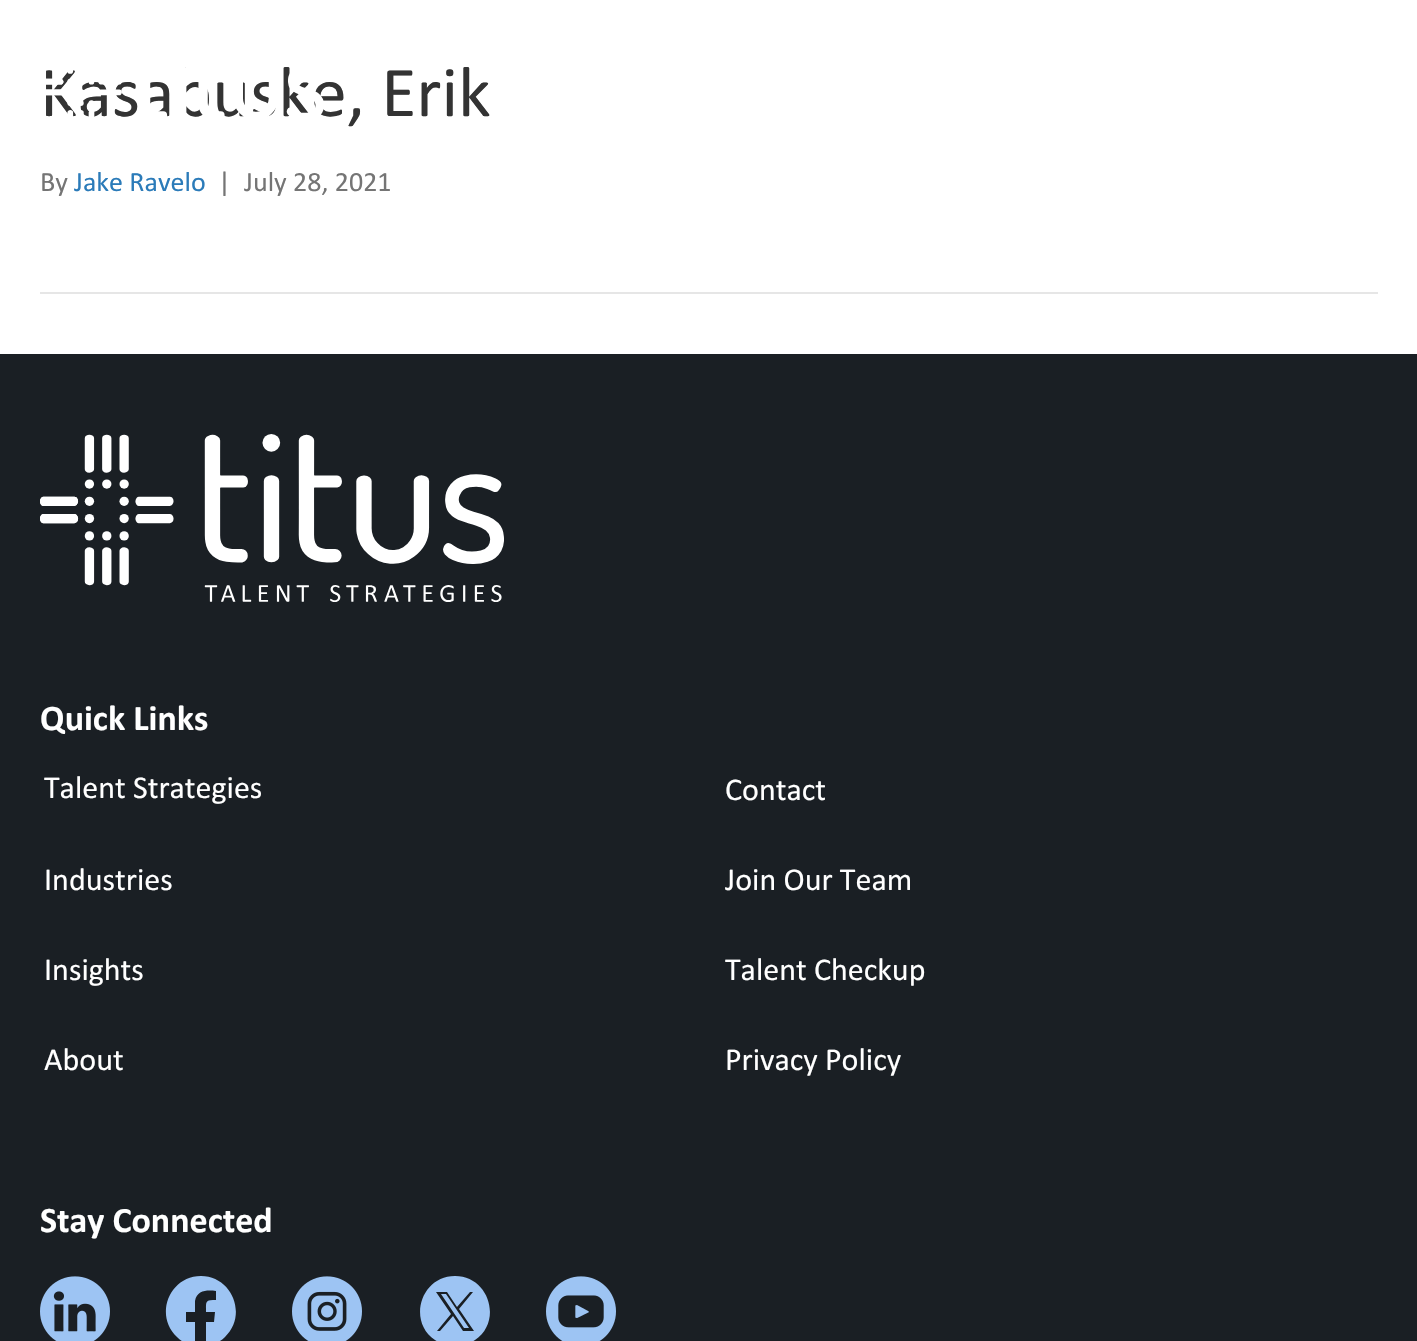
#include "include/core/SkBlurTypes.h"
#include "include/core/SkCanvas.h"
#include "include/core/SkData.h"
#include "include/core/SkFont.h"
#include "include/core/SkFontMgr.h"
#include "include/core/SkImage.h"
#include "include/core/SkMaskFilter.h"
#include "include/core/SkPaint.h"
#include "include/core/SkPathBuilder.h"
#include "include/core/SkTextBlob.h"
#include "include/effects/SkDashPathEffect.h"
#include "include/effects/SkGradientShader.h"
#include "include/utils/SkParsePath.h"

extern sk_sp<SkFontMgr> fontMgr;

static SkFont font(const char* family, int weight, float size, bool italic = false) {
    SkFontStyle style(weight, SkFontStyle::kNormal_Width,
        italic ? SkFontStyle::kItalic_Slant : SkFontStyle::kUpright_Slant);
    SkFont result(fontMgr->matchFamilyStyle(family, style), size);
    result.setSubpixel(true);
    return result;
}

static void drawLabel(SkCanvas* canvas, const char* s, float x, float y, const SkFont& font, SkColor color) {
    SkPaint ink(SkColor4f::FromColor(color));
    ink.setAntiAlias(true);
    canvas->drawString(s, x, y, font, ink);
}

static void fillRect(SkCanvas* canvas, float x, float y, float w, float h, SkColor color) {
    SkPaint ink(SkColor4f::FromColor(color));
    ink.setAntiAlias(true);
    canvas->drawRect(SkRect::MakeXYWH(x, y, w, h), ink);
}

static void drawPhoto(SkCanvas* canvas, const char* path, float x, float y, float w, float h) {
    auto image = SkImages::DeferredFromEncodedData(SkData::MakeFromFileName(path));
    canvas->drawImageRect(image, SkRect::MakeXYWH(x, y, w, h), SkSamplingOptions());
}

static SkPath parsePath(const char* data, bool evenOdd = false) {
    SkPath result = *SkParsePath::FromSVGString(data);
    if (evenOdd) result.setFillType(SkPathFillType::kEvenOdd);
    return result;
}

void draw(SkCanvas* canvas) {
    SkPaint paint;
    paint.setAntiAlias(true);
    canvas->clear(0xFFFFFFFF);
    SkFont font1 = font("Calibri", 400, 72);
    drawLabel(canvas, "Kasabuske, Erik", 40, 116, font1, 0xFF333333);
    SkFont font2 = font("Calibri", 400, 28);
    drawLabel(canvas, "By", 40, 191, font2, 0xFF757575);
    drawLabel(canvas, "Jake Ravelo", 74, 191, font2, 0xFF2B7BB9);
    drawLabel(canvas, "|", 218, 191, font2, 0xFF757575);
    drawLabel(canvas, "July 28, 2021", 244, 191, font2, 0xFF757575);
    fillRect(canvas, 40, 292, 1338, 2, 0xFFE6E6E6);
    drawPhoto(canvas, "assets/img1.png", 46, 67, 278, 50);
    fillRect(canvas, 0, 354, 1417, 987, 0xFF1A1F24);
    drawPhoto(canvas, "assets/img2.png", 40, 434, 464, 168);
    SkFont font3 = font("Calibri", 700, 36);
    drawLabel(canvas, "Quick Links", 40, 730, font3, 0xFFFFFFFF);
    SkFont font4 = font("Calibri", 400, 32);
    drawLabel(canvas, "Talent Strategies", 44, 798, font4, 0xFFFFFFFF);
    drawLabel(canvas, "Contact", 725, 800, font4, 0xFFFFFFFF);
    drawLabel(canvas, "Industries", 44, 890, font4, 0xFFFFFFFF);
    drawLabel(canvas, "Join Our Team", 725, 890, font4, 0xFFFFFFFF);
    drawLabel(canvas, "Insights", 44, 980, font4, 0xFFFFFFFF);
    drawLabel(canvas, "Talent Checkup", 725, 980, font4, 0xFFFFFFFF);
    drawLabel(canvas, "About", 44, 1070, font4, 0xFFFFFFFF);
    drawLabel(canvas, "Privacy Policy", 725, 1070, font4, 0xFFFFFFFF);
    drawLabel(canvas, "Stay Connected", 40, 1232, font3, 0xFFFFFFFF);
    drawPhoto(canvas, "assets/img3.png", 40, 1276, 70, 65);
    paint.setColor(0xFF9DC4F3);
    canvas->drawPath(parsePath("M201 1276C169 1276 154 1316 177 1337C182 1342 188 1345 195 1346V1322H186V1312H195V1301C197 1290 207 1290 216 1291V1300C205 1300 206 1301 206 1312H215L214 1322H206V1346C213 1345 220 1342 225 1337C248 1315 232 1276 201 1276Z"), paint);
    drawPhoto(canvas, "assets/img4.png", 292, 1276, 70, 65);
    canvas->drawPath(parsePath("M455 1276C421 1276 407 1321 435 1340C441 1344 448 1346 455 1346C462 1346 469 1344 475 1340C503 1321 489 1276 455 1276ZM463 1331L453 1316L440 1331H437L451 1314L436 1292H447L457 1307L470 1292H473L459 1309L474 1331ZM446 1294H441L464 1328H469Z"), paint);
    drawPhoto(canvas, "assets/img5.png", 546, 1276, 70, 65);
}
